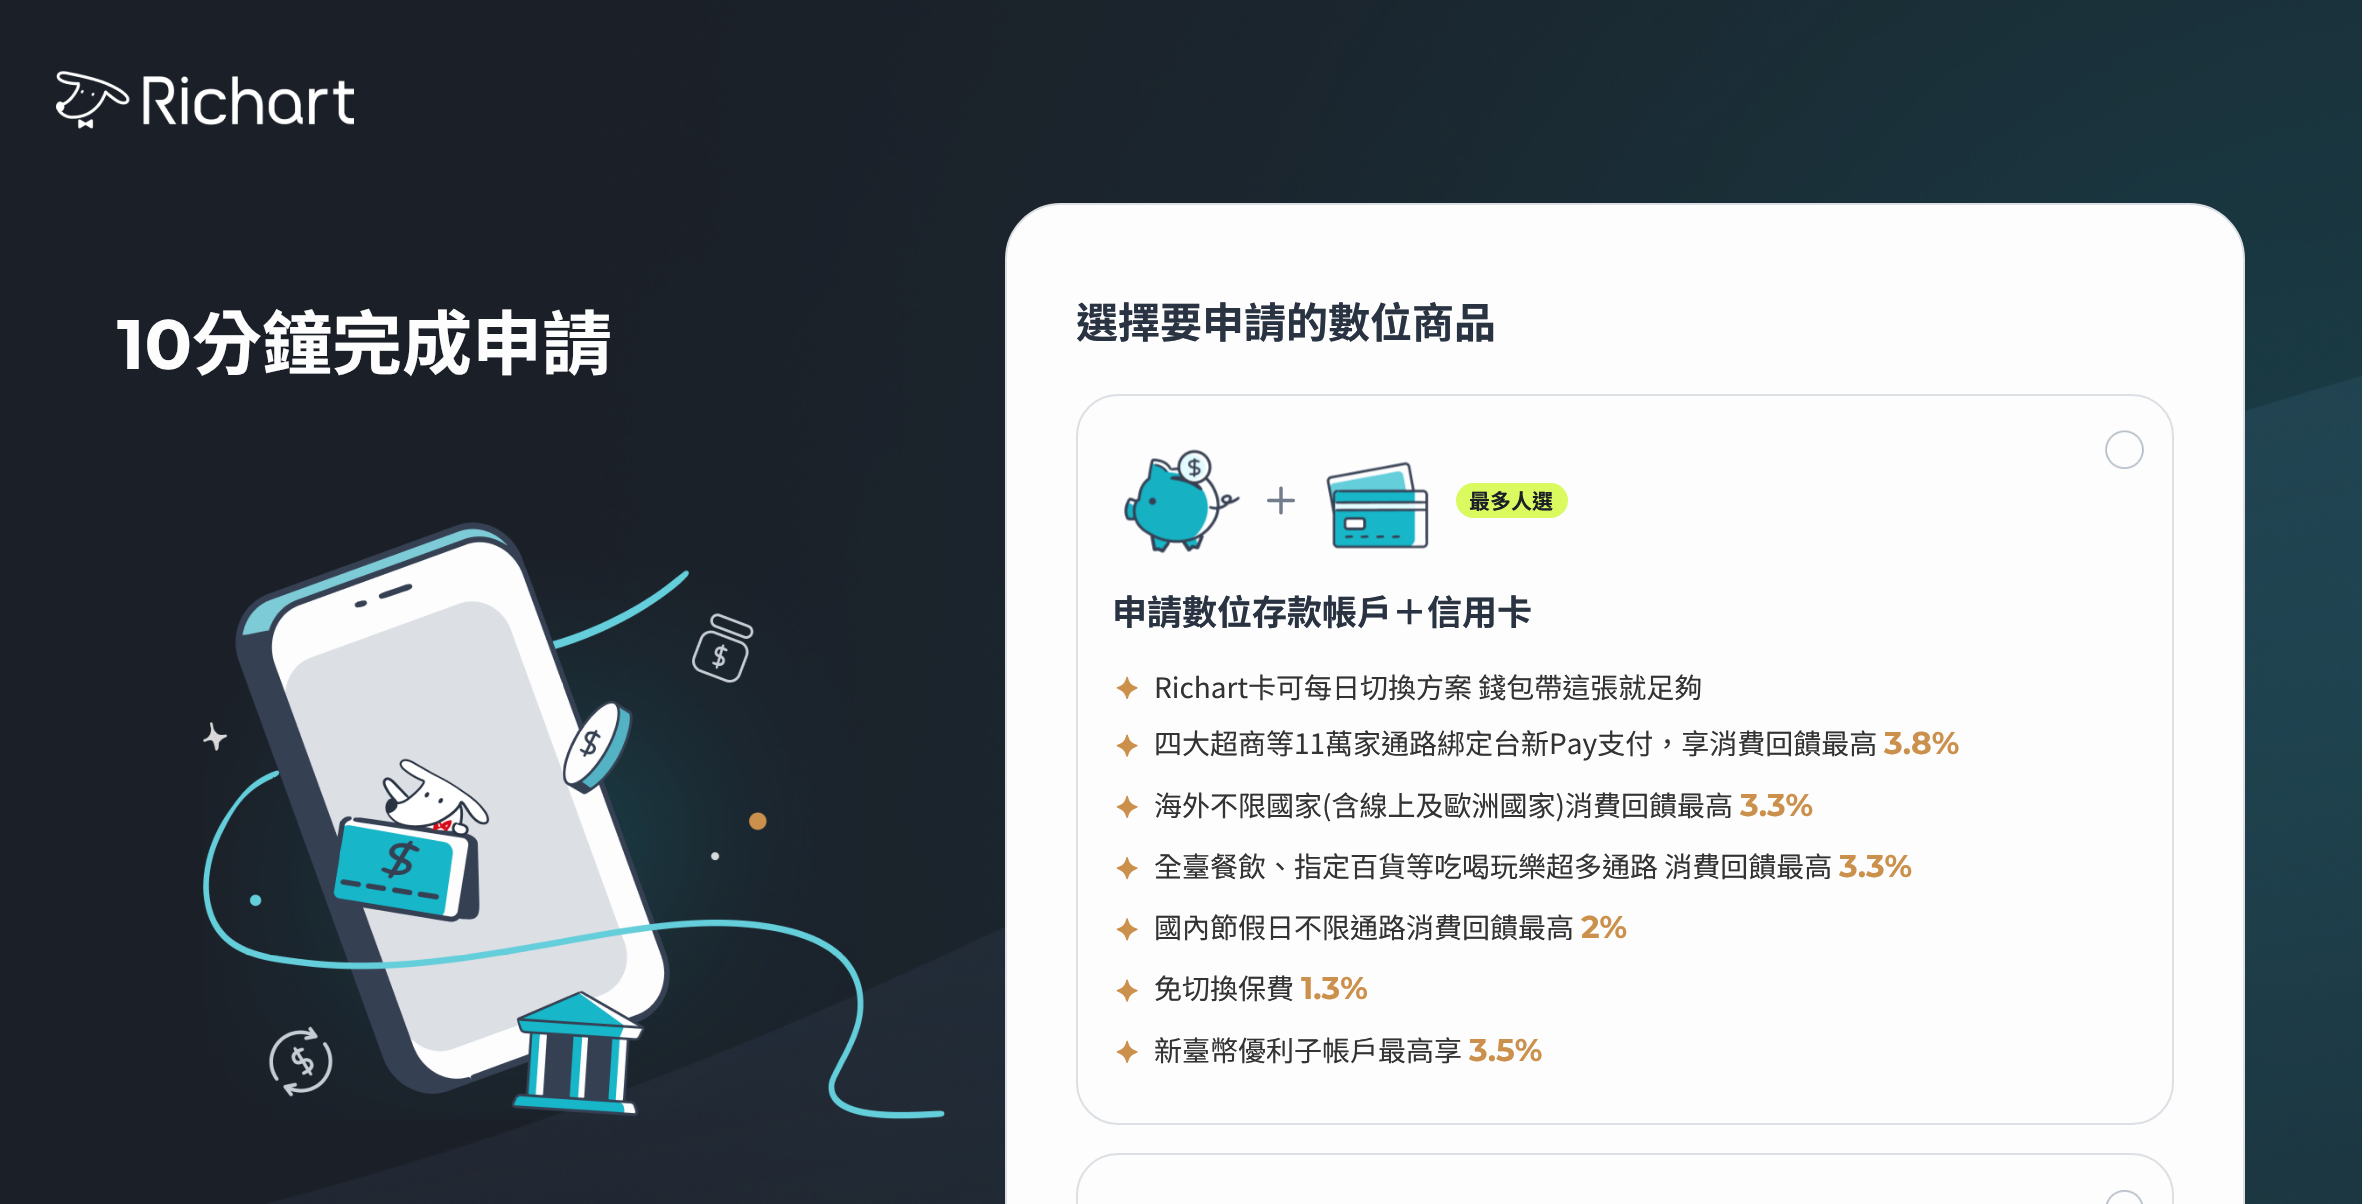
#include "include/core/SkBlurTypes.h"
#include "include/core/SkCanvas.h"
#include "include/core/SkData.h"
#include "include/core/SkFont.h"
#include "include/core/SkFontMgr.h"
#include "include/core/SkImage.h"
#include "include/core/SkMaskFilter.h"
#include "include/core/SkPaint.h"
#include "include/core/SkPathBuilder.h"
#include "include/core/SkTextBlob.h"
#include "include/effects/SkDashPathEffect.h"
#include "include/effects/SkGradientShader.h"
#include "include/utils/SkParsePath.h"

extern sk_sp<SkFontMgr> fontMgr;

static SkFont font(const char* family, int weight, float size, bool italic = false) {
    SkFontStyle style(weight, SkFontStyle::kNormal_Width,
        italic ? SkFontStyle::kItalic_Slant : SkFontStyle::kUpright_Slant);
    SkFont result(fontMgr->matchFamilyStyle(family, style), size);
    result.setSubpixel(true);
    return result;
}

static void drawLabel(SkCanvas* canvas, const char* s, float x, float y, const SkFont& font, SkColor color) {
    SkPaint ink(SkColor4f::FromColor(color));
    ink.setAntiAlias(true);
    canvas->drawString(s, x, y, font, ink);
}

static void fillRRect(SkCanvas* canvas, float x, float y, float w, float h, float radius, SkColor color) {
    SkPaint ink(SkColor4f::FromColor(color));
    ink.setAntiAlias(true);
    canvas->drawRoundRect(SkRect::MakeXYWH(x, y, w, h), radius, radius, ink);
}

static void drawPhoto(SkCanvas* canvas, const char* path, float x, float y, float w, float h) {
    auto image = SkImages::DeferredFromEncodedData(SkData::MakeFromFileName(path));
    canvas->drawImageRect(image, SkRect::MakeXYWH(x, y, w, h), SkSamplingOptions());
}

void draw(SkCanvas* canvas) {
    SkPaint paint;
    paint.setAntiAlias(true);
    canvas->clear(0xFF1B2028);
    drawPhoto(canvas, "assets/img2.png", 266, 0, 2096, 1204);
    drawPhoto(canvas, "assets/img1.png", 56, 70, 298, 59);
    SkFont font1 = font("Montserrat", 700, 70);
    drawLabel(canvas, "10", 117, 369, font1, 0xFFFDFDFD);
    SkFont font2 = font("Noto Sans TC", 700, 70);
    drawLabel(canvas, "分鐘完成申請", 192, 369, font2, 0xFFFDFDFD);
    drawPhoto(canvas, "assets/img3.png", 203, 522, 742, 598);
    paint.setColor(0xFFFDFDFD);
    canvas->drawRoundRect(SkRect::MakeXYWH(1006, 204, 1238, 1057), 55, 55, paint);
    paint.setStroke(true);
    paint.setStrokeWidth(2);
    paint.setColor(0xFFDCE0E5);
    canvas->drawRoundRect(SkRect::MakeXYWH(1006, 204, 1238, 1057), 55, 55, paint);
    SkFont font3 = font("Noto Sans TC", 700, 42);
    drawLabel(canvas, "選擇要申請的數位商品", 1076, 338, font3, 0xFF2A3342);
    drawPhoto(canvas, "assets/img4.png", 2105, 430, 39, 39);
    canvas->drawRoundRect(SkRect::MakeXYWH(1077, 395, 1096, 729), 41, 41, paint);
    drawPhoto(canvas, "assets/img5.png", 1124, 449, 117, 105);
    drawPhoto(canvas, "assets/img6.png", 1267, 486, 28, 29);
    drawPhoto(canvas, "assets/img7.png", 1326, 461, 103, 88);
    fillRRect(canvas, 1456, 483, 112, 35, 17.5f, 0xFFDAFA5F);
    SkFont font4 = font("Noto Sans TC", 700, 21);
    drawLabel(canvas, "最多人選", 1469, 509, font4, 0xFF1B2028);
    SkFont font5 = font("Noto Sans TC", 700, 35);
    drawLabel(canvas, "申請數位存款帳戶＋信用卡", 1112, 625, font5, 0xFF2A3342);
    drawPhoto(canvas, "assets/img8.png", 1116, 676, 22, 23);
    SkFont font6 = font("Noto Sans TC", 400, 28);
    drawLabel(canvas, "Richart卡可每日切換方案 錢包帶這張就足夠", 1154, 698, font6, 0xFF333333);
    drawPhoto(canvas, "assets/img9.png", 1116, 734, 22, 23);
    drawLabel(canvas, "四大超商等11萬家通路綁定台新Pay支付，享消費回饋最高", 1154, 754, font6, 0xFF333333);
    SkFont font7 = font("Montserrat", 700, 31.5f);
    drawLabel(canvas, "3.8%", 1884, 754, font7, 0xFFCB904C);
    drawPhoto(canvas, "assets/img8.png", 1116, 795, 22, 23);
    drawLabel(canvas, "海外不限國家(含線上及歐洲國家)消費回饋最高", 1154, 816, font6, 0xFF333333);
    drawLabel(canvas, "3.3%", 1740, 816, font7, 0xFFCB904C);
    drawPhoto(canvas, "assets/img10.png", 1116, 857, 22, 23);
    drawLabel(canvas, "全臺餐飲、指定百貨等吃喝玩樂超多通路 消費回饋最高", 1154, 877, font6, 0xFF333333);
    drawLabel(canvas, "3.3%", 1839, 877, font7, 0xFFCB904C);
    drawPhoto(canvas, "assets/img11.png", 1116, 918, 22, 23);
    drawLabel(canvas, "國內節假日不限通路消費回饋最高", 1154, 938, font6, 0xFF333333);
    drawLabel(canvas, "2%", 1581, 938, font7, 0xFFCB904C);
    drawPhoto(canvas, "assets/img9.png", 1116, 979, 22, 23);
    drawLabel(canvas, "免切換保費", 1154, 999, font6, 0xFF333333);
    drawLabel(canvas, "1.3%", 1301, 999, font7, 0xFFCB904C);
    drawPhoto(canvas, "assets/img8.png", 1116, 1040, 22, 23);
    drawLabel(canvas, "新臺幣優利子帳戶最高享", 1154, 1061, font6, 0xFF333333);
    drawLabel(canvas, "3.5%", 1469, 1061, font7, 0xFFCB904C);
    drawPhoto(canvas, "assets/img12.png", 2106, 1190, 37, 14);
    canvas->drawRoundRect(SkRect::MakeXYWH(1077, 1154, 1096, 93), 41, 41, paint);
}
